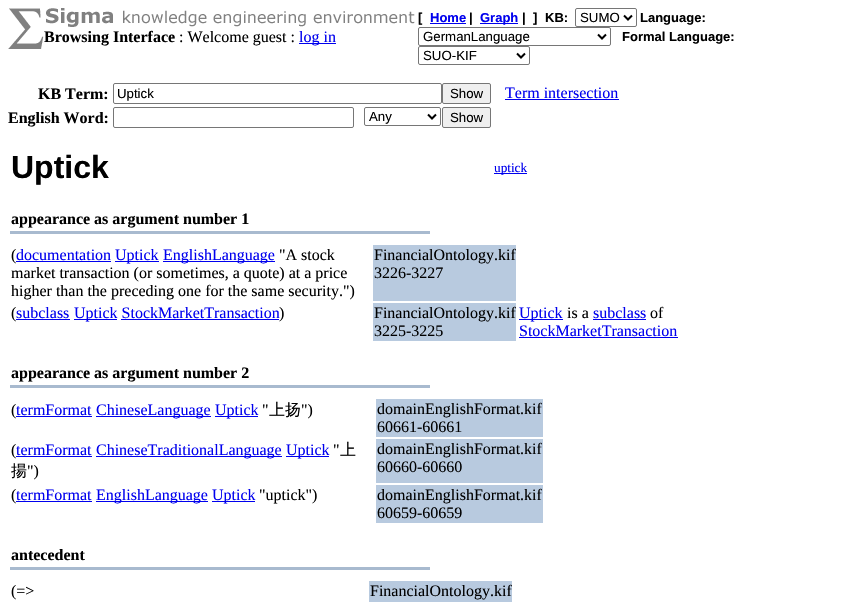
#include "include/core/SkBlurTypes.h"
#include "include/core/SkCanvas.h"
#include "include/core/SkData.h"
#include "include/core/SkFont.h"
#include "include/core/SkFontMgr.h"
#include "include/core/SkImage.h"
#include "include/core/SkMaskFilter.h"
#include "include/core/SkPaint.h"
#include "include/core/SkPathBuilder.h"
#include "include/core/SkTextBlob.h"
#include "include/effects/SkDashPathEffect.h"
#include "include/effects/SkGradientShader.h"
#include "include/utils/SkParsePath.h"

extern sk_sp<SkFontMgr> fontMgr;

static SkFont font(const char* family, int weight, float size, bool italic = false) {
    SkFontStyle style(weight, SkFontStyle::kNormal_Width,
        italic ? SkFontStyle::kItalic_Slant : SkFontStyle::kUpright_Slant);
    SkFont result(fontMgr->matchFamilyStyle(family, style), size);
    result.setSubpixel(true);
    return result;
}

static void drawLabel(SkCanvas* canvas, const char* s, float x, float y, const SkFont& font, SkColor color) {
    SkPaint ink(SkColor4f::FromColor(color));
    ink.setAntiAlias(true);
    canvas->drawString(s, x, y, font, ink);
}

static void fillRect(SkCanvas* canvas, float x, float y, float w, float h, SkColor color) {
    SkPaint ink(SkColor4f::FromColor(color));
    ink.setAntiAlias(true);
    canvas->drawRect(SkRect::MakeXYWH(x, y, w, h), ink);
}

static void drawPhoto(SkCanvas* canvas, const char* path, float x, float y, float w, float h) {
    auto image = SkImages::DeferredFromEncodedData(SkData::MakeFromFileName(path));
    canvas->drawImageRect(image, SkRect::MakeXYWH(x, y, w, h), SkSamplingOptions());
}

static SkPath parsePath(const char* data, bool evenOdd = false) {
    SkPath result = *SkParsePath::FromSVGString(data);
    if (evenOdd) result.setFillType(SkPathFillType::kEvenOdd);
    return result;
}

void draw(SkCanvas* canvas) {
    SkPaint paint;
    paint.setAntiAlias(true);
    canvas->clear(0xFFFFFFFF);
    drawPhoto(canvas, "assets/img1.png", 8, 8, 36, 41);
    drawPhoto(canvas, "assets/img2.png", 46, 8, 369, 19);
    SkFont font1 = font("Liberation Serif", 700, 16);
    drawLabel(canvas, "Browsing Interface", 44, 42, font1, 0xFF000000);
    SkFont font2 = font("Liberation Serif", 400, 16);
    drawLabel(canvas, ": Welcome guest :", 179, 42, font2, 0xFF000000);
    fillRect(canvas, 299, 43, 37, 1, 0xFF0000EE);
    drawLabel(canvas, "log in", 299, 42, font2, 0xFF0000EE);
    SkFont font3 = font("Liberation Sans", 700, 13);
    drawLabel(canvas, "[", 418, 22, font3, 0xFF000000);
    drawLabel(canvas, "|", 469, 22, font3, 0xFF000000);
    fillRect(canvas, 480, 23, 38, 1, 0xFF0000EE);
    drawLabel(canvas, "Graph", 480, 22, font3, 0xFF0000EE);
    drawLabel(canvas, "|", 522, 22, font3, 0xFF000000);
    drawLabel(canvas, "]", 533, 22, font3, 0xFF000000);
    drawLabel(canvas, "KB:", 545, 22, font3, 0xFF000000);
    paint.setStroke(true);
    paint.setStrokeWidth(1);
    paint.setColor(0xFF767676);
    canvas->drawRoundRect(SkRect::MakeXYWH(575.5f, 8.5f, 61, 18), 1.5f, 1.5f, paint);
    paint.setStrokeWidth(2);
    paint.setColor(0xFF000000);
    canvas->drawPath(parsePath("M624 15.5L628 19.5L632 15.5"), paint);
    SkFont font4 = font("Liberation Sans", 400, 13.25f);
    drawLabel(canvas, "SUMO", 580, 22, font4, 0xFF000000);
    drawLabel(canvas, "Language:", 640, 22, font3, 0xFF000000);
    paint.setStrokeWidth(1);
    paint.setColor(0xFF767676);
    canvas->drawRoundRect(SkRect::MakeXYWH(418.5f, 27.5f, 192, 18), 1.5f, 1.5f, paint);
    paint.setStrokeWidth(2);
    paint.setColor(0xFF000000);
    canvas->drawPath(parsePath("M598 34.5L602 38.5L606 34.5"), paint);
    drawLabel(canvas, "GermanLanguage", 423, 41, font4, 0xFF000000);
    drawLabel(canvas, "Home", 430, 22, font3, 0xFF0000EE);
    fillRect(canvas, 430, 23, 36, 1, 0xFF0000EE);
    drawLabel(canvas, "Formal Language:", 622, 41, font3, 0xFF000000);
    paint.setStrokeWidth(1);
    paint.setColor(0xFF767676);
    canvas->drawRoundRect(SkRect::MakeXYWH(418.5f, 46.5f, 111, 18), 1.5f, 1.5f, paint);
    paint.setStrokeWidth(2);
    paint.setColor(0xFF000000);
    canvas->drawPath(parsePath("M517 53.5L521 57.5L525 53.5"), paint);
    drawLabel(canvas, "SUO-KIF", 423, 60, font4, 0xFF000000);
    drawLabel(canvas, "KB Term:", 38, 99, font1, 0xFF000000);
    paint.setStrokeWidth(1);
    paint.setColor(0xFF767676);
    canvas->drawRoundRect(SkRect::MakeXYWH(113.5f, 83.5f, 328, 20), 1.5f, 1.5f, paint);
    drawLabel(canvas, "Uptick", 117, 98, font4, 0xFF000000);
    paint.setStroke(false);
    paint.setColor(0xFFEFEFEF);
    canvas->drawRoundRect(SkRect::MakeXYWH(442.5f, 83.5f, 48, 20), 1.5f, 1.5f, paint);
    paint.setStroke(true);
    paint.setColor(0xFF767676);
    canvas->drawRoundRect(SkRect::MakeXYWH(442.5f, 83.5f, 48, 20), 1.5f, 1.5f, paint);
    drawLabel(canvas, "Show", 450, 98, font4, 0xFF000000);
    drawLabel(canvas, "Term intersection", 505, 98, font2, 0xFF0000EE);
    fillRect(canvas, 505, 99, 114, 1, 0xFF0000EE);
    drawLabel(canvas, "English Word:", 8, 123, font1, 0xFF000000);
    canvas->drawRoundRect(SkRect::MakeXYWH(113.5f, 107.5f, 240, 20), 1.5f, 1.5f, paint);
    canvas->drawRoundRect(SkRect::MakeXYWH(364.5f, 107.5f, 76, 18), 1.5f, 1.5f, paint);
    paint.setStrokeWidth(2);
    paint.setColor(0xFF000000);
    canvas->drawPath(parsePath("M428 114.5L432 118.5L436 114.5"), paint);
    drawLabel(canvas, "Any", 369, 121, font4, 0xFF000000);
    paint.setStroke(false);
    paint.setColor(0xFFEFEFEF);
    canvas->drawRoundRect(SkRect::MakeXYWH(442.5f, 107.5f, 48, 20), 1.5f, 1.5f, paint);
    paint.setStroke(true);
    paint.setStrokeWidth(1);
    paint.setColor(0xFF767676);
    canvas->drawRoundRect(SkRect::MakeXYWH(442.5f, 107.5f, 48, 20), 1.5f, 1.5f, paint);
    drawLabel(canvas, "Show", 450, 122, font4, 0xFF000000);
    SkFont font5 = font("Liberation Sans", 700, 32);
    drawLabel(canvas, "Uptick", 11, 178, font5, 0xFF000000);
    fillRect(canvas, 494, 173, 33, 1, 0xFF0000EE);
    SkFont font6 = font("Liberation Serif", 400, 13.25f);
    drawLabel(canvas, "uptick", 494, 172, font6, 0xFF0000EE);
    drawLabel(canvas, "appearance as argument number 1", 11, 224, font1, 0xFF000000);
    fillRect(canvas, 10, 231, 420, 3, 0xFFA8BACF);
    drawLabel(canvas, "(", 11, 260, font2, 0xFF000000);
    drawLabel(canvas, "documentation", 16, 260, font2, 0xFF0000EE);
    fillRect(canvas, 16, 261, 95, 1, 0xFF0000EE);
    fillRect(canvas, 115, 261, 44, 1, 0xFF0000EE);
    drawLabel(canvas, "Uptick", 115, 260, font2, 0xFF0000EE);
    fillRect(canvas, 163, 261, 112, 1, 0xFF0000EE);
    drawLabel(canvas, "EnglishLanguage", 163, 260, font2, 0xFF0000EE);
    drawLabel(canvas, "\"A stock", 279, 260, font2, 0xFF000000);
    drawLabel(canvas, "market transaction (or sometimes, a quote) at a price", 11, 278, font2, 0xFF000000);
    drawLabel(canvas, "higher than the preceding one for the same security.\")", 11, 296, font2, 0xFF000000);
    fillRect(canvas, 373, 245, 143, 56, 0xFFB8CADF);
    drawLabel(canvas, "FinancialOntology.kif", 374, 260, font2, 0xFF000000);
    drawLabel(canvas, "3226-3227", 374, 278, font2, 0xFF000000);
    drawLabel(canvas, "(", 11, 318, font2, 0xFF000000);
    drawLabel(canvas, "subclass", 16, 318, font2, 0xFF0000EE);
    fillRect(canvas, 16, 319, 54, 1, 0xFF0000EE);
    fillRect(canvas, 74, 319, 43, 1, 0xFF0000EE);
    drawLabel(canvas, "Uptick StockMarketTransaction", 74, 318, font2, 0xFF0000EE);
    drawLabel(canvas, ")", 279, 318, font2, 0xFF000000);
    fillRect(canvas, 121, 319, 158, 1, 0xFF0000EE);
    fillRect(canvas, 373, 303, 143, 38, 0xFFB8CADF);
    drawLabel(canvas, "FinancialOntology.kif", 374, 318, font2, 0xFF000000);
    drawLabel(canvas, "3225-3225", 374, 336, font2, 0xFF000000);
    fillRect(canvas, 519, 319, 44, 1, 0xFF0000EE);
    drawLabel(canvas, "Uptick", 519, 318, font2, 0xFF0000EE);
    drawLabel(canvas, "is a", 567, 318, font2, 0xFF000000);
    drawLabel(canvas, "subclass", 593, 318, font2, 0xFF0000EE);
    fillRect(canvas, 593, 319, 53, 1, 0xFF0000EE);
    drawLabel(canvas, "of", 650, 318, font2, 0xFF000000);
    drawLabel(canvas, "StockMarketTransaction", 519, 336, font2, 0xFF0000EE);
    fillRect(canvas, 519, 337, 159, 1, 0xFF0000EE);
    drawLabel(canvas, "appearance as argument number 2", 11, 378, font1, 0xFF000000);
    fillRect(canvas, 10, 385, 420, 3, 0xFFA8BACF);
    drawLabel(canvas, "(", 11, 415, font2, 0xFF000000);
    drawLabel(canvas, "termFormat", 16, 415, font2, 0xFF0000EE);
    fillRect(canvas, 16, 416, 76, 1, 0xFF0000EE);
    fillRect(canvas, 96, 416, 115, 1, 0xFF0000EE);
    drawLabel(canvas, "ChineseLanguage", 96, 415, font2, 0xFF0000EE);
    fillRect(canvas, 215, 416, 43, 1, 0xFF0000EE);
    drawLabel(canvas, "Uptick", 215, 415, font2, 0xFF0000EE);
    drawLabel(canvas, "\"", 262, 415, font2, 0xFF000000);
    SkFont font7 = font("WenQuanYi Zen Hei", 500, 16);
    drawLabel(canvas, "上扬", 269, 415, font7, 0xFF000000);
    drawLabel(canvas, "\")", 301, 415, font2, 0xFF000000);
    fillRect(canvas, 376, 399, 167, 38, 0xFFB8CADF);
    drawLabel(canvas, "domainEnglishFormat.kif", 377, 414, font2, 0xFF000000);
    drawLabel(canvas, "60661-60661", 377, 432, font2, 0xFF000000);
    drawLabel(canvas, "(", 11, 455, font2, 0xFF000000);
    drawLabel(canvas, "termFormat", 16, 455, font2, 0xFF0000EE);
    fillRect(canvas, 16, 456, 76, 1, 0xFF0000EE);
    fillRect(canvas, 96, 456, 186, 1, 0xFF0000EE);
    drawLabel(canvas, "ChineseTraditionalLanguage", 96, 455, font2, 0xFF0000EE);
    fillRect(canvas, 286, 456, 43, 1, 0xFF0000EE);
    drawLabel(canvas, "Uptick", 286, 455, font2, 0xFF0000EE);
    drawLabel(canvas, "\"", 333, 455, font2, 0xFF000000);
    drawLabel(canvas, "上", 340, 455, font7, 0xFF000000);
    drawLabel(canvas, "揚", 11, 476, font7, 0xFF000000);
    drawLabel(canvas, "\")", 27, 476, font2, 0xFF000000);
    fillRect(canvas, 376, 439, 167, 44, 0xFFB8CADF);
    drawLabel(canvas, "domainEnglishFormat.kif", 377, 454, font2, 0xFF000000);
    drawLabel(canvas, "60660-60660", 377, 472, font2, 0xFF000000);
    drawLabel(canvas, "(", 11, 500, font2, 0xFF000000);
    drawLabel(canvas, "termFormat", 16, 500, font2, 0xFF0000EE);
    fillRect(canvas, 16, 501, 76, 1, 0xFF0000EE);
    fillRect(canvas, 96, 501, 112, 1, 0xFF0000EE);
    drawLabel(canvas, "EnglishLanguage", 96, 500, font2, 0xFF0000EE);
    fillRect(canvas, 212, 501, 43, 1, 0xFF0000EE);
    drawLabel(canvas, "Uptick", 212, 500, font2, 0xFF0000EE);
    drawLabel(canvas, "\"uptick\")", 259, 500, font2, 0xFF000000);
    fillRect(canvas, 376, 485, 167, 38, 0xFFB8CADF);
    drawLabel(canvas, "domainEnglishFormat.kif", 377, 500, font2, 0xFF000000);
    drawLabel(canvas, "60659-60659", 377, 518, font2, 0xFF000000);
    drawLabel(canvas, "antecedent", 11, 560, font1, 0xFF000000);
    fillRect(canvas, 10, 567, 420, 3, 0xFFA8BACF);
    drawLabel(canvas, "(=>", 11, 596, font2, 0xFF000000);
    fillRect(canvas, 369, 581, 143, 21, 0xFFB8CADF);
    drawLabel(canvas, "FinancialOntology.kif", 370, 596, font2, 0xFF000000);
}
